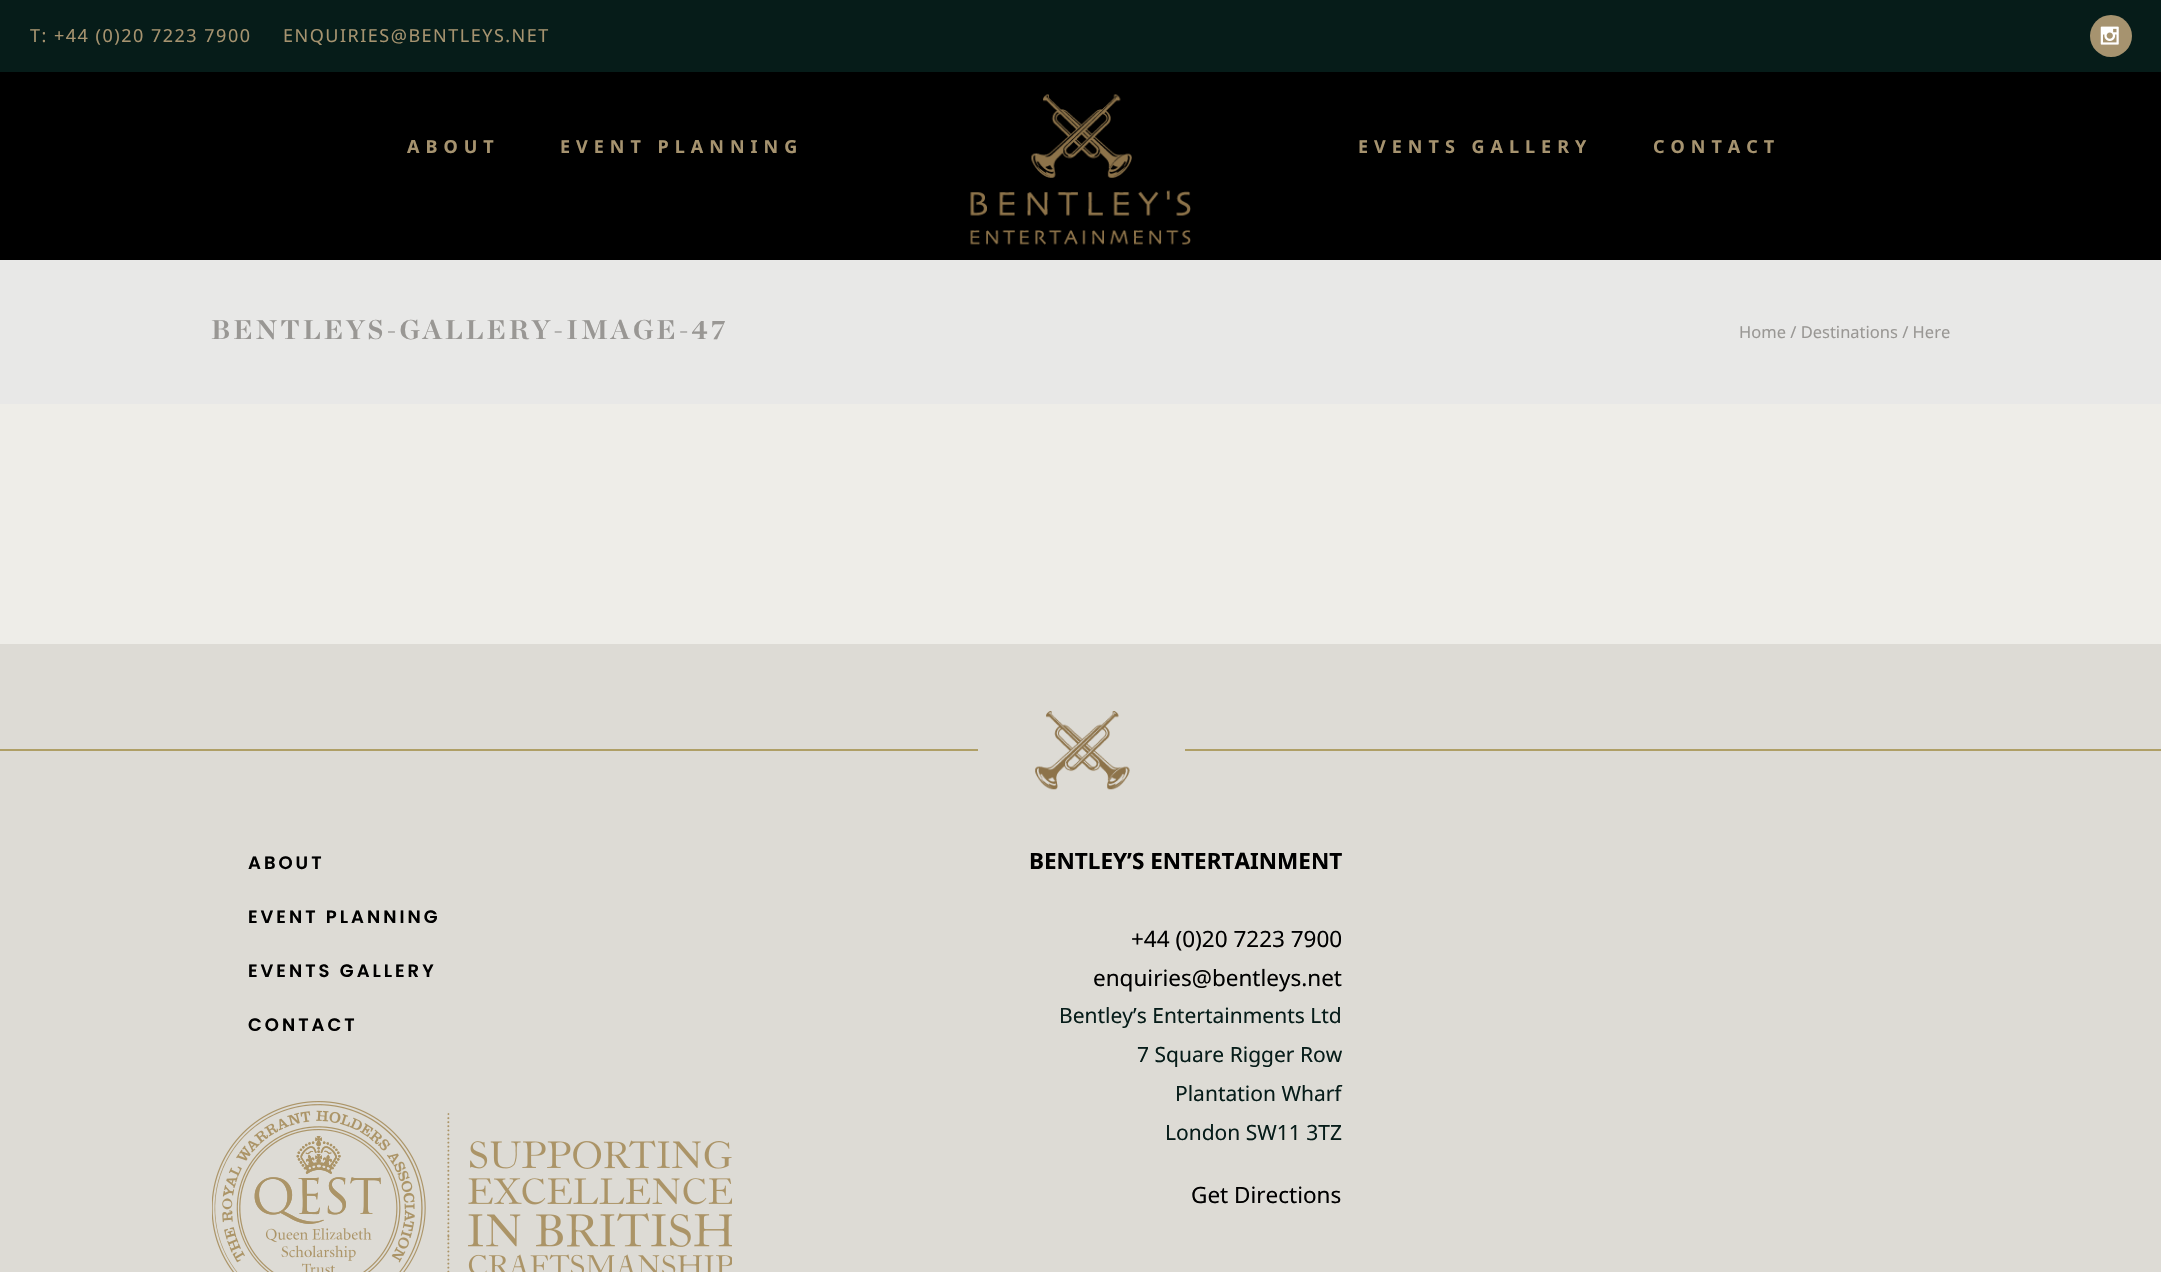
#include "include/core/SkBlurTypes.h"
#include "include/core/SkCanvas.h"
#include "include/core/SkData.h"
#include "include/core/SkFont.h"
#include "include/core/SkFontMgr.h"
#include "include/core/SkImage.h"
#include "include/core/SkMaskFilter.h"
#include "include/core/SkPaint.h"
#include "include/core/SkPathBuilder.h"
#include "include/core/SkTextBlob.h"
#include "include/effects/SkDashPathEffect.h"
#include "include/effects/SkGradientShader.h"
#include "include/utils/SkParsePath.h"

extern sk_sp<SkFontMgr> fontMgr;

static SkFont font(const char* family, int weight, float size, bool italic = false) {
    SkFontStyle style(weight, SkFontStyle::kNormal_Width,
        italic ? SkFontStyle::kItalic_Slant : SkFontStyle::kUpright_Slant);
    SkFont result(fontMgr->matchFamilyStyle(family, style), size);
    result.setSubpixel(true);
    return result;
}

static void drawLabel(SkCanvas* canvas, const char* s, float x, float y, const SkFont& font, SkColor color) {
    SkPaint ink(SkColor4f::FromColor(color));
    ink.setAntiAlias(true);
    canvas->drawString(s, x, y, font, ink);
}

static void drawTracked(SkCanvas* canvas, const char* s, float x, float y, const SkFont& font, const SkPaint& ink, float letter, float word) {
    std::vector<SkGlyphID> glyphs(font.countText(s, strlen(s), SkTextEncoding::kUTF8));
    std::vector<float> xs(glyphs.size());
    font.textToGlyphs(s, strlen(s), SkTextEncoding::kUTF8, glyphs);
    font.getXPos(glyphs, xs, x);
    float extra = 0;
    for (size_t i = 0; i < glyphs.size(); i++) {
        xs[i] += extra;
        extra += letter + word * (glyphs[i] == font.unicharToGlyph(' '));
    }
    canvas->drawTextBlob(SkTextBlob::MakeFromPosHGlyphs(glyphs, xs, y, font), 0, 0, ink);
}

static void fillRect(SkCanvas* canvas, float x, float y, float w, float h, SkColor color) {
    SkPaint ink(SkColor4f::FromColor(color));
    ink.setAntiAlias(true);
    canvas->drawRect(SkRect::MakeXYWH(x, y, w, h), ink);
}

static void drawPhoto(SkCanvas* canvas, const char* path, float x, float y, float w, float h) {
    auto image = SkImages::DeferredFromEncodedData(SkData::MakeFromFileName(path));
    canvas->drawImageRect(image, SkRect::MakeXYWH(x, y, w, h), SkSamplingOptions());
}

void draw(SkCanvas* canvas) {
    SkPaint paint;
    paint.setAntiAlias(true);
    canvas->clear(0xFFEEEDE8);
    fillRect(canvas, 0, 0, 2161, 72, 0xFF061C19);
    SkFont font1 = font("Noto Sans", 400, 18);
    paint.setColor(0xFFA6936F);
    drawTracked(canvas, "T: +44 (0)20 7223 7900", 30, 42, font1, paint, 1.5f, 0);
    drawTracked(canvas, "ENQUIRIES@BENTLEYS.NET", 283, 42, font1, paint, 1.5f, 0);
    canvas->drawCircle(2111, 36, 21, paint);
    drawPhoto(canvas, "assets/img1.png", 2100, 26, 19, 19);
    fillRect(canvas, 0, 72, 2161, 188, 0xFF000000);
    SkFont font2 = font("Noto Sans", 700, 18);
    drawTracked(canvas, "ABOUT", 407, 153, font2, paint, 6, 0);
    drawTracked(canvas, "EVENT PLANNING", 560, 153, font2, paint, 6, 0);
    drawPhoto(canvas, "assets/img2.png", 970, 94, 221, 151);
    drawTracked(canvas, "EVENTS GALLERY", 1358, 153, font2, paint, 6, 0);
    drawTracked(canvas, "CONTACT", 1653, 153, font2, paint, 6, 0);
    fillRect(canvas, 0, 260, 2161, 144, 0xFFE8E8E7);
    SkFont font3 = font("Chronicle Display", 700, 27);
    paint.setColor(0xFF999794);
    drawTracked(canvas, "BENTLEYS-GALLERY-IMAGE-47", 211, 339, font3, paint, 3, 0);
    SkFont font4 = font("Noto Sans", 400, 16.5f);
    drawLabel(canvas, "Home / Destinations / Here", 1739, 338, font4, 0xFF999794);
    fillRect(canvas, 0, 644, 2161, 628, 0xFFDDDBD5);
    fillRect(canvas, 0, 749, 2161, 2, 0xFFAF9F66);
    fillRect(canvas, 978, 749, 207, 2, 0xFFDDDBD5);
    drawPhoto(canvas, "assets/img3.png", 1035, 711, 95, 79);
    SkFont font5 = font("Poppins", 600, 18);
    paint.setColor(0xFF000000);
    drawTracked(canvas, "ABOUT", 248, 869, font5, paint, 3, 0);
    drawTracked(canvas, "EVENT PLANNING", 248, 923, font5, paint, 3, 0);
    drawTracked(canvas, "EVENTS GALLERY", 248, 977, font5, paint, 3, 0);
    drawTracked(canvas, "CONTACT", 248, 1031, font5, paint, 3, 0);
    drawPhoto(canvas, "assets/img4.png", 212, 1101, 520, 171);
    SkFont font6 = font("Noto Sans", 700, 22.5f);
    drawLabel(canvas, "BENTLEY’S ENTERTAINMENT", 1029, 869, font6, 0xFF000000);
    SkFont font7 = font("Noto Sans", 400, 22.5f);
    drawLabel(canvas, "+44 (0)20 7223 7900", 1131, 947, font7, 0xFF000000);
    drawLabel(canvas, "enquiries@bentleys.net", 1093, 986, font7, 0xFF000000);
    SkFont font8 = font("Noto Sans", 400, 21);
    drawLabel(canvas, "Bentley’s Entertainments Ltd", 1059, 1023, font8, 0xFF061C19);
    drawLabel(canvas, "7 Square Rigger Row", 1137, 1062, font8, 0xFF061C19);
    drawLabel(canvas, "Plantation Wharf", 1175, 1101, font8, 0xFF061C19);
    drawLabel(canvas, "London SW11 3TZ", 1165, 1140, font8, 0xFF061C19);
    drawLabel(canvas, "Get Directions", 1191, 1203, font7, 0xFF000000);
}
